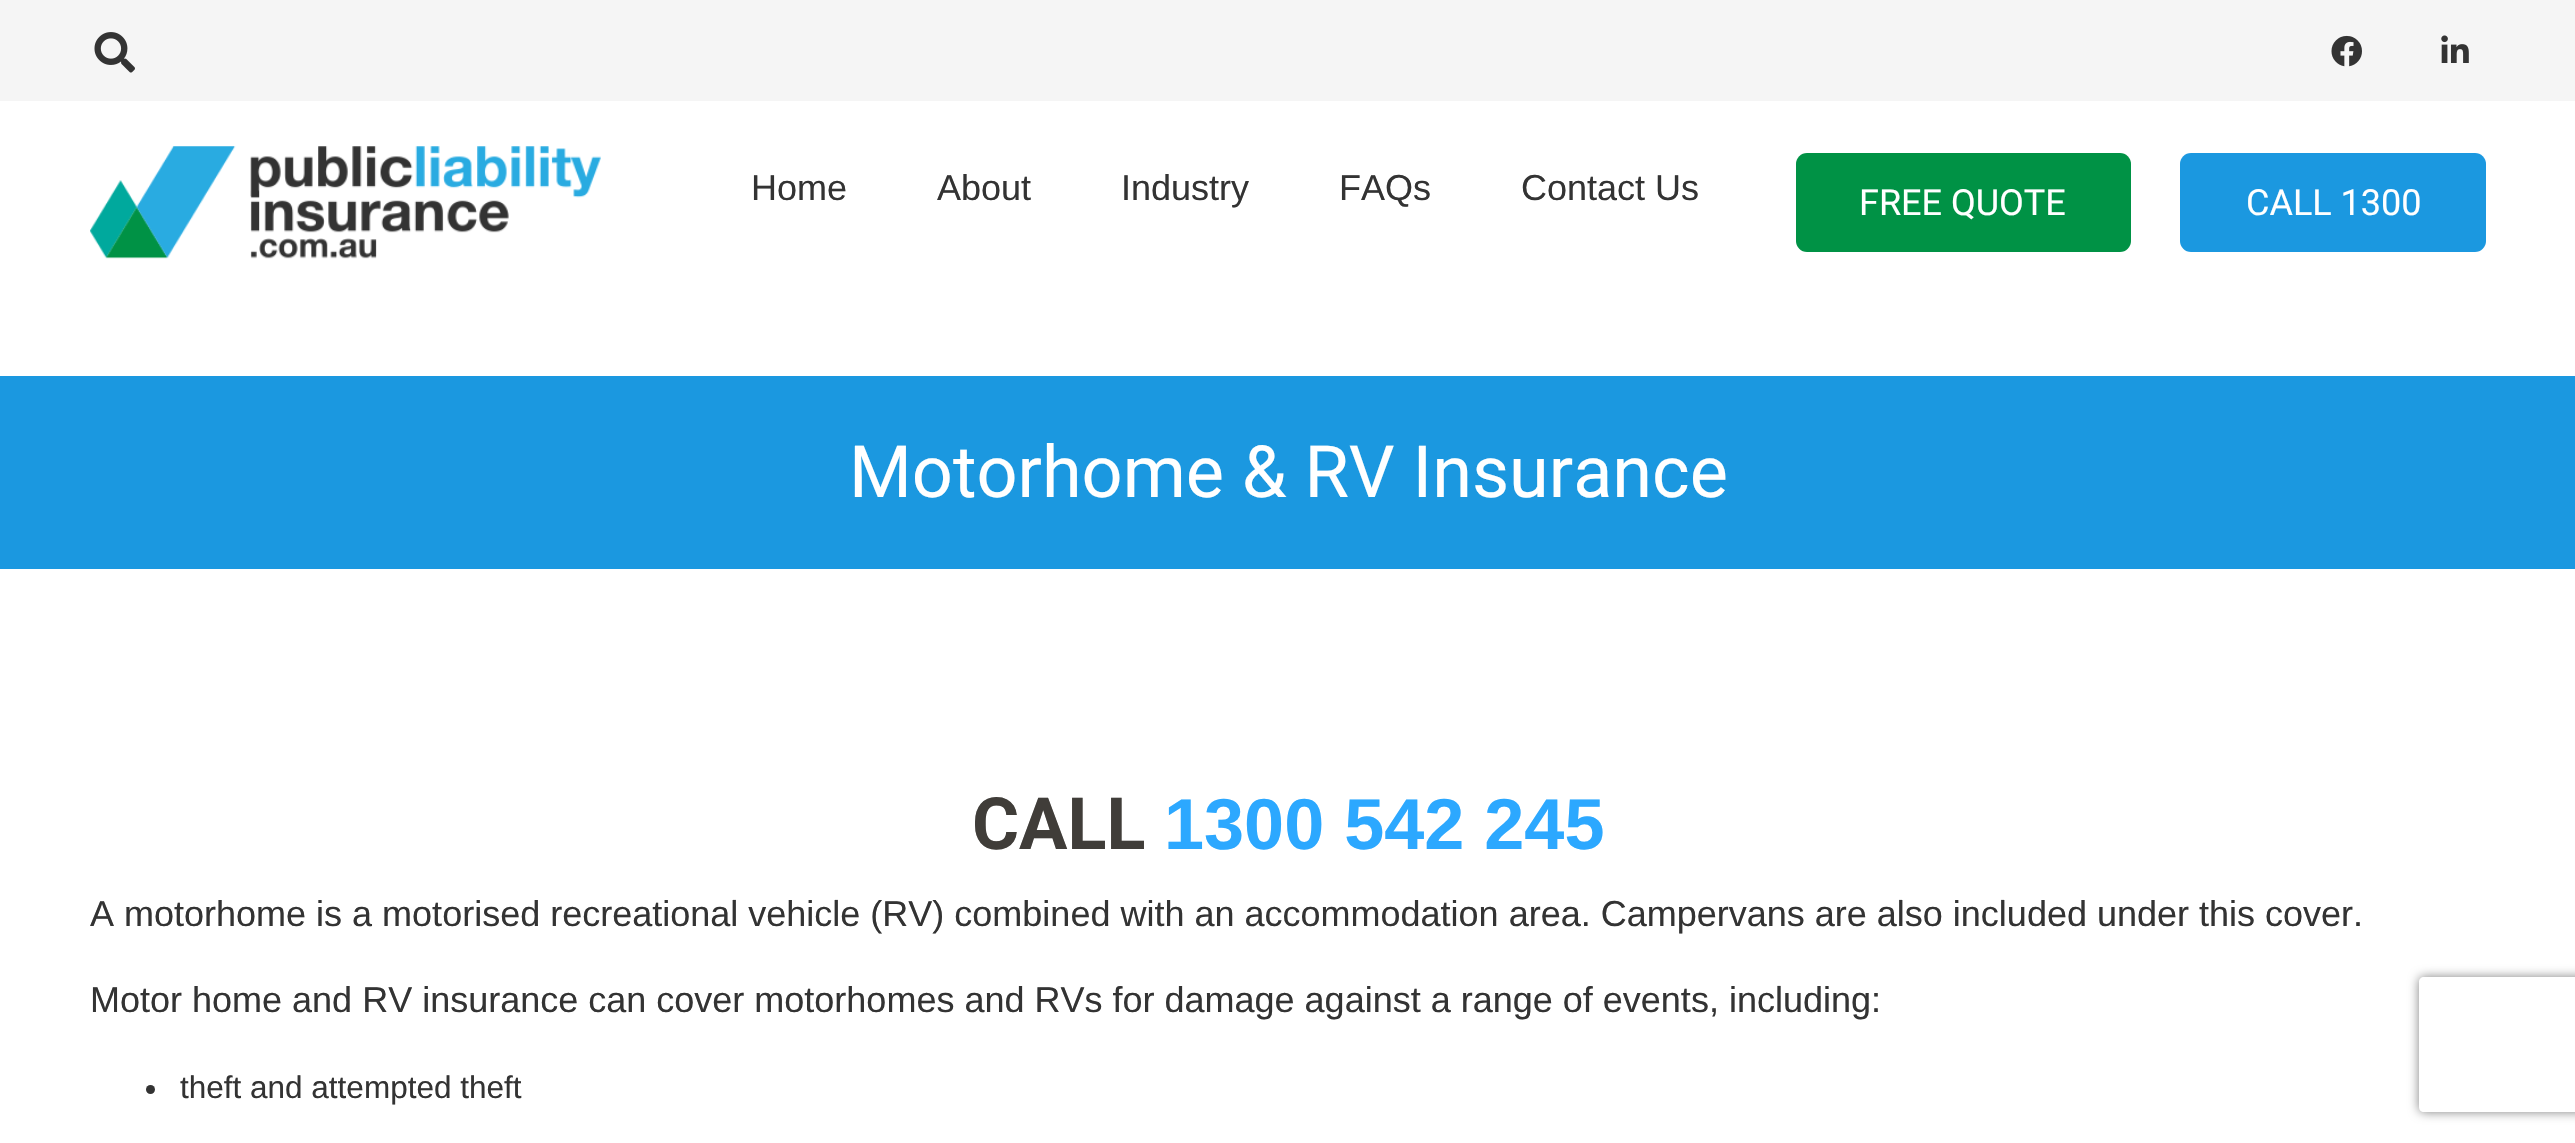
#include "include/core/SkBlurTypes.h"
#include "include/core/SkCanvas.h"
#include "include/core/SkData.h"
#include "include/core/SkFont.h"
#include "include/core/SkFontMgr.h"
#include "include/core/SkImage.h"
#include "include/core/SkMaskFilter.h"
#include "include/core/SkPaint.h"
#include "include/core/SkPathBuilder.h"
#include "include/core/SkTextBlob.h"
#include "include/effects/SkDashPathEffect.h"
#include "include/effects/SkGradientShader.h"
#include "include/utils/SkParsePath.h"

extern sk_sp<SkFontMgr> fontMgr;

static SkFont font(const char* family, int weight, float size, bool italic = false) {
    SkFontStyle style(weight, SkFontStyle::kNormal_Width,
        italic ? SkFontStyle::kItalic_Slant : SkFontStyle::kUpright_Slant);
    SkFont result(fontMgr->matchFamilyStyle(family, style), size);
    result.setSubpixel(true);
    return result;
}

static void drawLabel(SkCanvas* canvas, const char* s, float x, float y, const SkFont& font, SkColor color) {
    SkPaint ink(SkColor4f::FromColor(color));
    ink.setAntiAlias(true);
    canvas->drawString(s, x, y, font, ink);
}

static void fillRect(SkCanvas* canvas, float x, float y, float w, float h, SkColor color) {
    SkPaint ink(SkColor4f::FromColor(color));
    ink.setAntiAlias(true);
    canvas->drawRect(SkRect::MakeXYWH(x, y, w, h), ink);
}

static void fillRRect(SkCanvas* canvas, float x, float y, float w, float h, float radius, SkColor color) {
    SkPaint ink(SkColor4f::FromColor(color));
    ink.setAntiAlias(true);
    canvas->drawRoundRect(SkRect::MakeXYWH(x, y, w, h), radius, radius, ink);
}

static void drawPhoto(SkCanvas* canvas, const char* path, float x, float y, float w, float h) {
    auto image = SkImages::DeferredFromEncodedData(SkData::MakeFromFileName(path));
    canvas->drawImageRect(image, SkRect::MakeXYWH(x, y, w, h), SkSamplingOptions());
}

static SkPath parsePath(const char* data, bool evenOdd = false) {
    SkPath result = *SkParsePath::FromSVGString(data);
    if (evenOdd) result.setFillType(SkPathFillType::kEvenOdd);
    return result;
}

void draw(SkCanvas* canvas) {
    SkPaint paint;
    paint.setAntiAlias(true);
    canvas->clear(0xFFFFFFFF);
    fillRect(canvas, 0, 0, 2575, 101, 0xFFF5F5F5);
    drawPhoto(canvas, "assets/img1.png", 94, 32, 41, 41);
    drawPhoto(canvas, "assets/img2.png", 2331, 35, 31, 32);
    drawPhoto(canvas, "assets/img3.png", 2441, 35, 28, 28);
    drawPhoto(canvas, "assets/img4.png", 90, 146, 511, 113);
    SkFont font1 = font("Liberation Sans", 400, 36);
    drawLabel(canvas, "Home", 751, 200, font1, 0xFF333333);
    drawLabel(canvas, "About", 937, 200, font1, 0xFF333333);
    drawLabel(canvas, "Industry", 1121, 200, font1, 0xFF333333);
    drawLabel(canvas, "FAQs", 1339, 200, font1, 0xFF333333);
    drawLabel(canvas, "Contact Us", 1521, 200, font1, 0xFF333333);
    fillRRect(canvas, 1796, 153, 335, 99, 11, 0xFF009245);
    SkFont font2 = font("Roboto", 400, 36);
    drawLabel(canvas, "FREE QUOTE", 1859, 215, font2, 0xFFFFFFFF);
    fillRRect(canvas, 2180, 153, 306, 99, 11, 0xFF1B98E0);
    drawLabel(canvas, "CALL 1300", 2246, 215, font2, 0xFFFFFFFF);
    fillRect(canvas, 0, 376, 2575, 193, 0xFF1B98E0);
    SkFont font3 = font("Roboto", 400, 72);
    drawLabel(canvas, "Motorhome & RV Insurance", 849, 497, font3, 0xFFFFFFFF);
    SkFont font4 = font("Roboto", 700, 72);
    drawLabel(canvas, "CALL", 972, 849, font4, 0xFF403D39);
    SkFont font5 = font("Liberation Sans", 700, 72);
    drawLabel(canvas, "1300 542 245", 1164, 849, font5, 0xFF2CA8FF);
    drawLabel(canvas, "A motorhome is a motorised recreational vehicle (RV) combined with an accommodation area. Campervans are also included under this cover.", 90, 926, font1, 0xFF333333);
    drawLabel(canvas, "Motor home and RV insurance can cover motorhomes and RVs for damage against a range of events, including:", 90, 1012, font1, 0xFF333333);
    paint.setColor(0xFF333333);
    canvas->drawCircle(150.5f, 1089.5f, 4.5f, paint);
    SkFont font6 = font("Liberation Sans", 400, 31.5f);
    drawLabel(canvas, "theft and attempted theft", 180, 1098, font6, 0xFF333333);
    canvas->save();
    canvas->clipPath(parsePath("M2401 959H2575V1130H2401ZM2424 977H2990C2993 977 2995 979 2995 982V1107C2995 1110 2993 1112 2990 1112H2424C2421 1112 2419 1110 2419 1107V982C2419 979 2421 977 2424 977Z", true), true);
    paint.setColor(0xFF808080);
    paint.setMaskFilter(SkMaskFilter::MakeBlur(kNormal_SkBlurStyle, 5.5f));
    canvas->drawRoundRect(SkRect::MakeXYWH(2419, 977, 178, 135), 5, 5, paint);
    paint.setMaskFilter(nullptr);
    canvas->restore();
}
